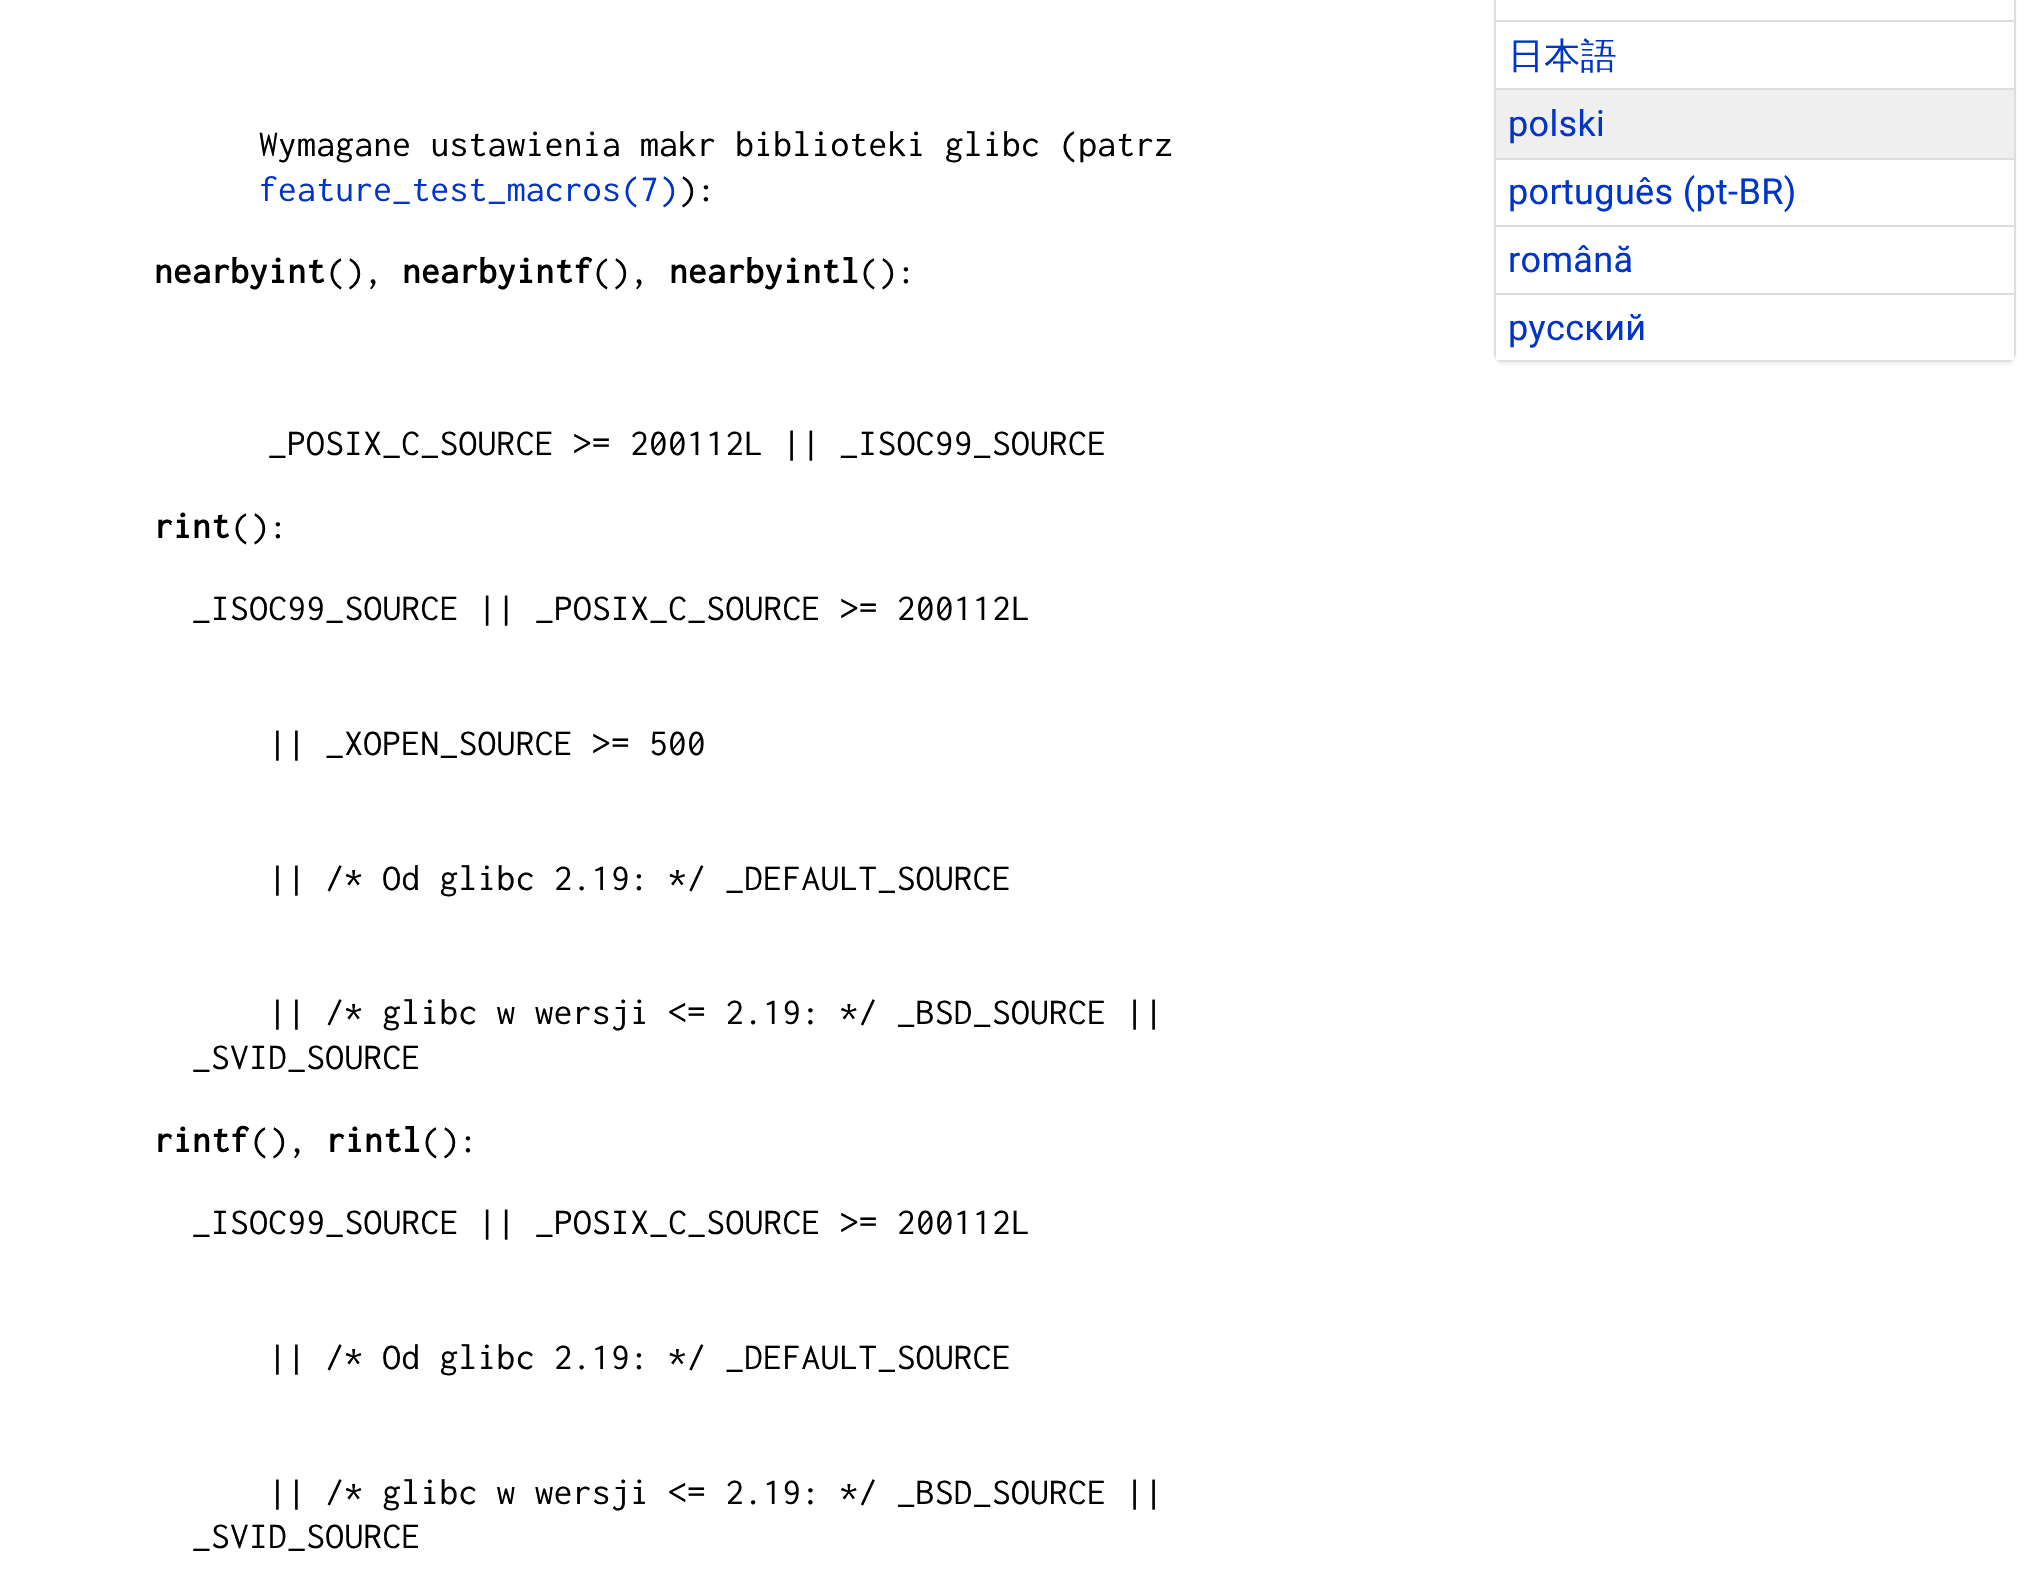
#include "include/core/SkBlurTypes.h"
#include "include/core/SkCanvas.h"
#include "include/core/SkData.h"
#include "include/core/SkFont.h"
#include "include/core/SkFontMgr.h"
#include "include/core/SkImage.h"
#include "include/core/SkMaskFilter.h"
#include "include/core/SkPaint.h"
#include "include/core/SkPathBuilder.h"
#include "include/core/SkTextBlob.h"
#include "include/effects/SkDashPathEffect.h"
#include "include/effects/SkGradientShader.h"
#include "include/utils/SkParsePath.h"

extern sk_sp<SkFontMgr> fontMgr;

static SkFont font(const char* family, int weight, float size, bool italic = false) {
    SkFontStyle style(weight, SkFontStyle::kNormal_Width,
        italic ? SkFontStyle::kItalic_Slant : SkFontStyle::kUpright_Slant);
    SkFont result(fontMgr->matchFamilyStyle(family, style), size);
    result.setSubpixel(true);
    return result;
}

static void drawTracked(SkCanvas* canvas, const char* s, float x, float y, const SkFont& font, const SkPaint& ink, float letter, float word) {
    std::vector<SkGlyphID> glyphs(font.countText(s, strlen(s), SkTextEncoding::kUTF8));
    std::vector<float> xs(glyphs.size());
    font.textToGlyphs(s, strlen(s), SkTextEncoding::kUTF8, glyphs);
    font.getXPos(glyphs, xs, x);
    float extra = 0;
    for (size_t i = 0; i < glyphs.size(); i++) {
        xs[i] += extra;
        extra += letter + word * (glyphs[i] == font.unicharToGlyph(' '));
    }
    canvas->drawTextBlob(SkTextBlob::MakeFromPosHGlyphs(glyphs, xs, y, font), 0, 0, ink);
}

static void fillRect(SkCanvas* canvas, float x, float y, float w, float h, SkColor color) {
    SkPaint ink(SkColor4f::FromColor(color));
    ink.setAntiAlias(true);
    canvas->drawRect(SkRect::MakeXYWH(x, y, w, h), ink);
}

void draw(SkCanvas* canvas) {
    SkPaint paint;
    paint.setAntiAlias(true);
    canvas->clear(0xFFFFFFFF);
    SkFont font1 = font("Inconsolata", 400, 37.4f);
    paint.setColor(0xFF000000);
    drawTracked(canvas, "Wymagane ustawienia makr biblioteki glibc (patrz", 259, 156, font1, paint, 0.35f, 0);
    paint.setColor(0xFF0035C7);
    drawTracked(canvas, "feature_test_macros(7)", 259, 201, font1, paint, 0.35f, 0);
    paint.setColor(0xFF000000);
    drawTracked(canvas, "):", 678, 201, font1, paint, 0.35f, 0);
    SkFont font2 = font("Inconsolata", 700, 37.4f);
    drawTracked(canvas, "nearbyint", 154, 283, font2, paint, 0.35f, 0);
    drawTracked(canvas, "(),", 326, 283, font1, paint, 0.35f, 0);
    drawTracked(canvas, "nearbyintf", 402, 283, font2, paint, 0.35f, 0);
    drawTracked(canvas, "(),", 592, 283, font1, paint, 0.35f, 0);
    drawTracked(canvas, "nearbyintl", 669, 283, font2, paint, 0.35f, 0);
    drawTracked(canvas, "():", 859, 283, font1, paint, 0.35f, 0);
    drawTracked(canvas, "_POSIX_C_SOURCE >= 200112L || _ISOC99_SOURCE", 268, 455, font1, paint, 0.35f, 0);
    drawTracked(canvas, "rint", 154, 538, font2, paint, 0.35f, 0);
    drawTracked(canvas, "():", 231, 538, font1, paint, 0.35f, 0);
    drawTracked(canvas, "_ISOC99_SOURCE || _POSIX_C_SOURCE >= 200112L", 192, 620, font1, paint, 0.35f, 0);
    drawTracked(canvas, "|| _XOPEN_SOURCE >= 500", 268, 755, font1, paint, 0.35f, 0);
    drawTracked(canvas, "|| /* Od glibc 2.19: */ _DEFAULT_SOURCE", 268, 890, font1, paint, 0.35f, 0);
    drawTracked(canvas, "|| /* glibc w wersji <= 2.19: */ _BSD_SOURCE ||", 268, 1024, font1, paint, 0.35f, 0);
    drawTracked(canvas, "_SVID_SOURCE", 192, 1069, font1, paint, 0.35f, 0);
    drawTracked(canvas, "rintf", 154, 1152, font2, paint, 0.35f, 0);
    drawTracked(canvas, "(),", 250, 1152, font1, paint, 0.35f, 0);
    drawTracked(canvas, "rintl", 326, 1152, font2, paint, 0.35f, 0);
    drawTracked(canvas, "():", 421, 1152, font1, paint, 0.35f, 0);
    drawTracked(canvas, "_ISOC99_SOURCE || _POSIX_C_SOURCE >= 200112L", 192, 1234, font1, paint, 0.35f, 0);
    drawTracked(canvas, "|| /* Od glibc 2.19: */ _DEFAULT_SOURCE", 268, 1369, font1, paint, 0.35f, 0);
    drawTracked(canvas, "|| /* glibc w wersji <= 2.19: */ _BSD_SOURCE ||", 268, 1504, font1, paint, 0.35f, 0);
    drawTracked(canvas, "_SVID_SOURCE", 192, 1548, font1, paint, 0.35f, 0);
    paint.setColor(0x0D000000);
    paint.setMaskFilter(SkMaskFilter::MakeBlur(kNormal_SkBlurStyle, 1));
    canvas->drawRoundRect(SkRect::MakeXYWH(1494, -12, 522, 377), 9, 9, paint);
    paint.setMaskFilter(nullptr);
    paint.setStroke(true);
    paint.setStrokeWidth(2);
    paint.setColor(0xFFDDDDDD);
    canvas->drawRoundRect(SkRect::MakeXYWH(1495, -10, 520, 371), 8, 8, paint);
    fillRect(canvas, 1496, 0, 518, 360, 0xFFFFFFFF);
    fillRect(canvas, 1496, 20, 518, 2, 0xFFDDDDDD);
    fillRect(canvas, 1496, 88, 518, 2, 0xFFDDDDDD);
    SkFont font3 = font("WenQuanYi Zen Hei", 500, 36);
    paint.setStroke(false);
    paint.setColor(0xFF0035C7);
    drawTracked(canvas, "日本語", 1508, 68, font3, paint, 0.35f, 0);
    fillRect(canvas, 1496, 90, 518, 68, 0xFFEFEFEF);
    fillRect(canvas, 1496, 158, 518, 2, 0xFFDDDDDD);
    SkFont font4 = font("Roboto", 400, 36);
    drawTracked(canvas, "polski", 1508, 136, font4, paint, 0.35f, 0);
    fillRect(canvas, 1496, 225, 518, 2, 0xFFDDDDDD);
    drawTracked(canvas, "português (pt-BR)", 1508, 204, font4, paint, 0.35f, 0);
    fillRect(canvas, 1496, 293, 518, 2, 0xFFDDDDDD);
    drawTracked(canvas, "română", 1508, 272, font4, paint, 0.35f, 0);
    drawTracked(canvas, "русский", 1508, 340, font4, paint, 0.35f, 0);
}
